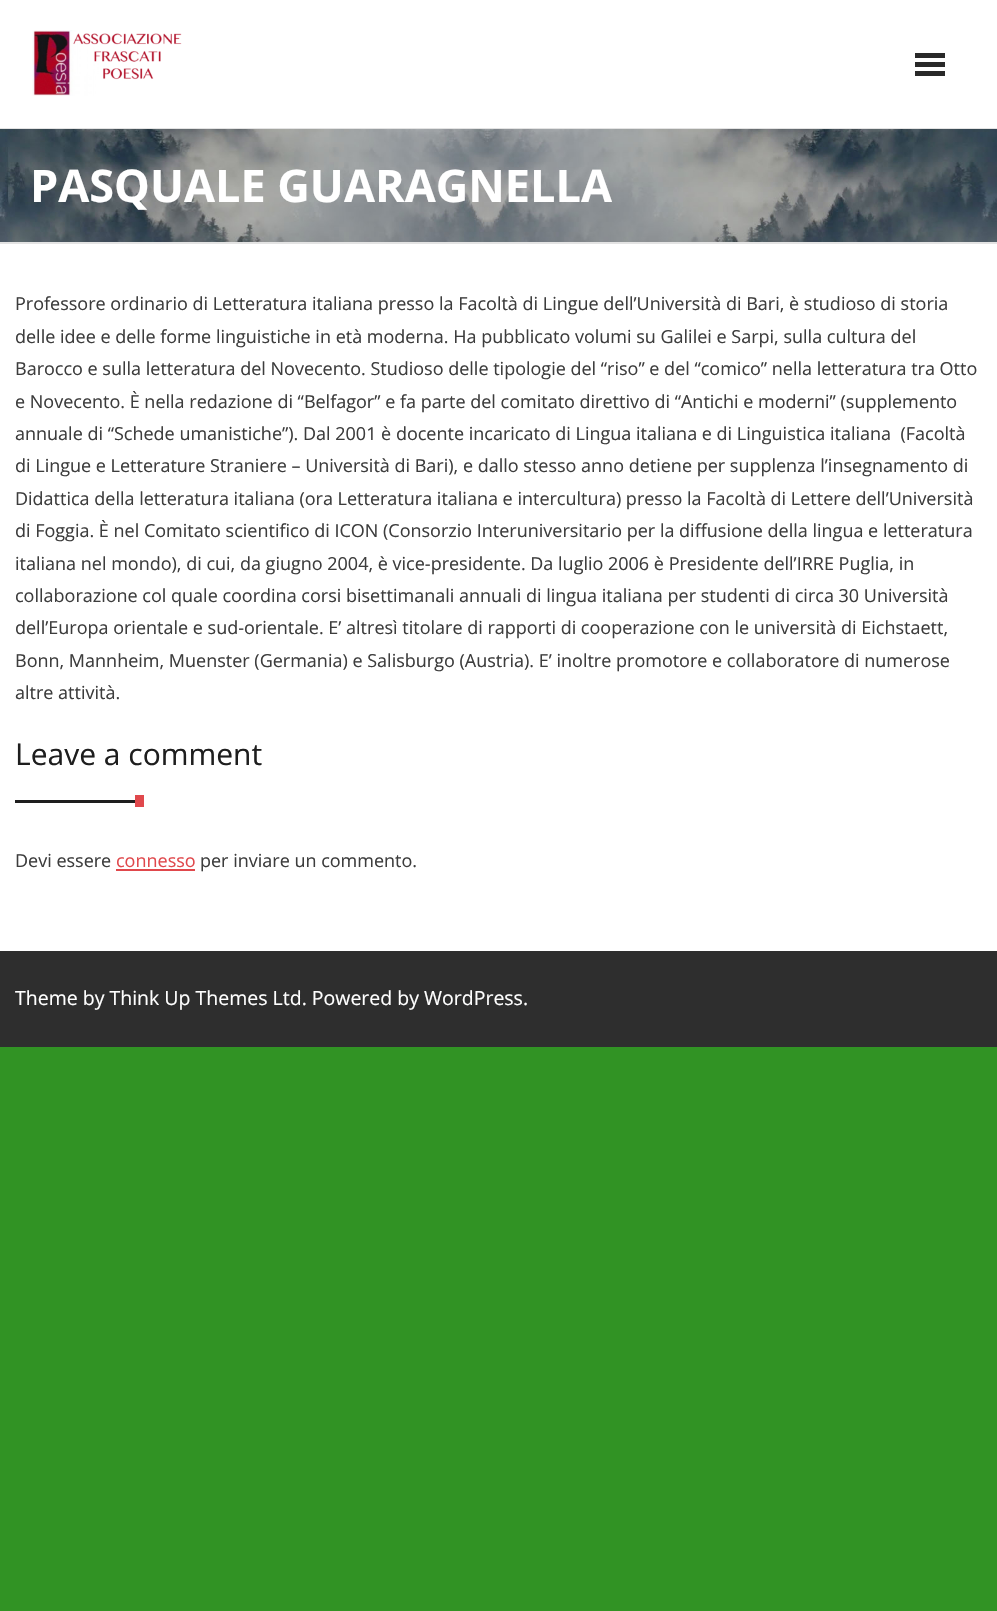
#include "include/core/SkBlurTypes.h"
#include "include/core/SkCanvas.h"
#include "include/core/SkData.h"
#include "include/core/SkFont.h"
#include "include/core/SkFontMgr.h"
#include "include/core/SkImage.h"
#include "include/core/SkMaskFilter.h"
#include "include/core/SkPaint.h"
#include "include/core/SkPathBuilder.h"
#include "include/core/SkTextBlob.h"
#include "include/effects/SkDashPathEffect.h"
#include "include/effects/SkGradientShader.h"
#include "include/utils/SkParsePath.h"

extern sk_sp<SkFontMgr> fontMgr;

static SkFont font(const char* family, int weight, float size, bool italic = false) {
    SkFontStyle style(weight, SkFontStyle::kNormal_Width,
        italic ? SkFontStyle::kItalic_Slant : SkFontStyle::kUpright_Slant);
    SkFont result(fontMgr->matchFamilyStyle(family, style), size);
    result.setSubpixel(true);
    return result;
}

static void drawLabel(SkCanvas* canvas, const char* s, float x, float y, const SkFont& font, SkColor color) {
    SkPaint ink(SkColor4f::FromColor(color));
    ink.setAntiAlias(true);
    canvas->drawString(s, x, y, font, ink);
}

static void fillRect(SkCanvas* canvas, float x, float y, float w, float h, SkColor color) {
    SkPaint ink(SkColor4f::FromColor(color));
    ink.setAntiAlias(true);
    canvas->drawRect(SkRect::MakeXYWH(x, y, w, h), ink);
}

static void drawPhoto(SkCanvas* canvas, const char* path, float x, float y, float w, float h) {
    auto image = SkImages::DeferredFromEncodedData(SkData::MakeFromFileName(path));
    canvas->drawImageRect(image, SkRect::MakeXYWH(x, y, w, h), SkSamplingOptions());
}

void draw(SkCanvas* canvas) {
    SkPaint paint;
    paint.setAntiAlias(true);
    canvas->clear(0xFF319324);
    fillRect(canvas, 0, 0, 997, 951, 0xFFFFFFFF);
    fillRect(canvas, 0, 128, 997, 1, 0xFFE3E3E3);
    drawPhoto(canvas, "assets/img1.png", 32, 30, 150, 66);
    fillRect(canvas, 915, 53, 30, 5, 0xFF292929);
    fillRect(canvas, 915, 62, 30, 5, 0xFF292929);
    fillRect(canvas, 915, 71, 30, 5, 0xFF292929);
    drawPhoto(canvas, "assets/img2.png", 0, 129, 997, 113);
    fillRect(canvas, 0, 242, 997, 2, 0xFFE3E3E3);
    SkFont font1 = font("Open Sans", 700, 45);
    drawLabel(canvas, "PASQUALE GUARAGNELLA", 30, 202, font1, 0xFFFFFFFF);
    SkFont font2 = font("Open Sans", 400, 18);
    drawLabel(canvas, "Professore ordinario di Letteratura italiana presso la Facoltà di Lingue dell’Università di Bari, è studioso di storia", 15, 310, font2, 0xFF3D3D3D);
    drawLabel(canvas, "delle idee e delle forme linguistiche in età moderna. Ha pubblicato volumi su Galilei e Sarpi, sulla cultura del", 15, 343, font2, 0xFF3D3D3D);
    drawLabel(canvas, "Barocco e sulla letteratura del Novecento. Studioso delle tipologie del “riso” e del “comico” nella letteratura tra Otto", 15, 375, font2, 0xFF3D3D3D);
    drawLabel(canvas, "e Novecento. È nella redazione di “Belfagor” e fa parte del comitato direttivo di “Antichi e moderni” (supplemento", 15, 408, font2, 0xFF3D3D3D);
    drawLabel(canvas, "annuale di “Schede umanistiche”). Dal 2001 è docente incaricato di Lingua italiana e di Linguistica italiana  (Facoltà", 15, 440, font2, 0xFF3D3D3D);
    drawLabel(canvas, "di Lingue e Letterature Straniere – Università di Bari), e dallo stesso anno detiene per supplenza l’insegnamento di", 15, 472, font2, 0xFF3D3D3D);
    drawLabel(canvas, "Didattica della letteratura italiana (ora Letteratura italiana e intercultura) presso la Facoltà di Lettere dell’Università", 15, 505, font2, 0xFF3D3D3D);
    drawLabel(canvas, "di Foggia. È nel Comitato scientifico di ICON (Consorzio Interuniversitario per la diffusione della lingua e letteratura", 15, 537, font2, 0xFF3D3D3D);
    drawLabel(canvas, "italiana nel mondo), di cui, da giugno 2004, è vice-presidente. Da luglio 2006 è Presidente dell’IRRE Puglia, in", 15, 570, font2, 0xFF3D3D3D);
    drawLabel(canvas, "collaborazione col quale coordina corsi bisettimanali annuali di lingua italiana per studenti di circa 30 Università", 15, 602, font2, 0xFF3D3D3D);
    drawLabel(canvas, "dell’Europa orientale e sud-orientale. E’ altresì titolare di rapporti di cooperazione con le università di Eichstaett,", 15, 634, font2, 0xFF3D3D3D);
    drawLabel(canvas, "Bonn, Mannheim, Muenster (Germania) e Salisburgo (Austria). E’ inoltre promotore e collaboratore di numerose", 15, 667, font2, 0xFF3D3D3D);
    drawLabel(canvas, "altre attività.", 15, 699, font2, 0xFF3D3D3D);
    SkFont font3 = font("Open Sans", 400, 30);
    drawLabel(canvas, "Leave a comment", 15, 765, font3, 0xFF1E1E1E);
    fillRect(canvas, 15, 800, 120, 3, 0xFF1E1E1E);
    fillRect(canvas, 135, 795, 9, 12, 0xFFE0484C);
    drawLabel(canvas, "Devi essere", 15, 867, font2, 0xFF3D3D3D);
    drawLabel(canvas, "connesso", 116, 867, font2, 0xFFE0484C);
    fillRect(canvas, 116, 869, 79, 2, 0xFFE0484C);
    drawLabel(canvas, "per inviare un commento.", 200, 867, font2, 0xFF3D3D3D);
    fillRect(canvas, 0, 951, 997, 96, 0xFF2E2E2E);
    SkFont font4 = font("Open Sans", 400, 19.5f);
    drawLabel(canvas, "Theme by Think Up Themes Ltd. Powered by WordPress.", 15, 1005, font4, 0xFFFFFFFF);
}
